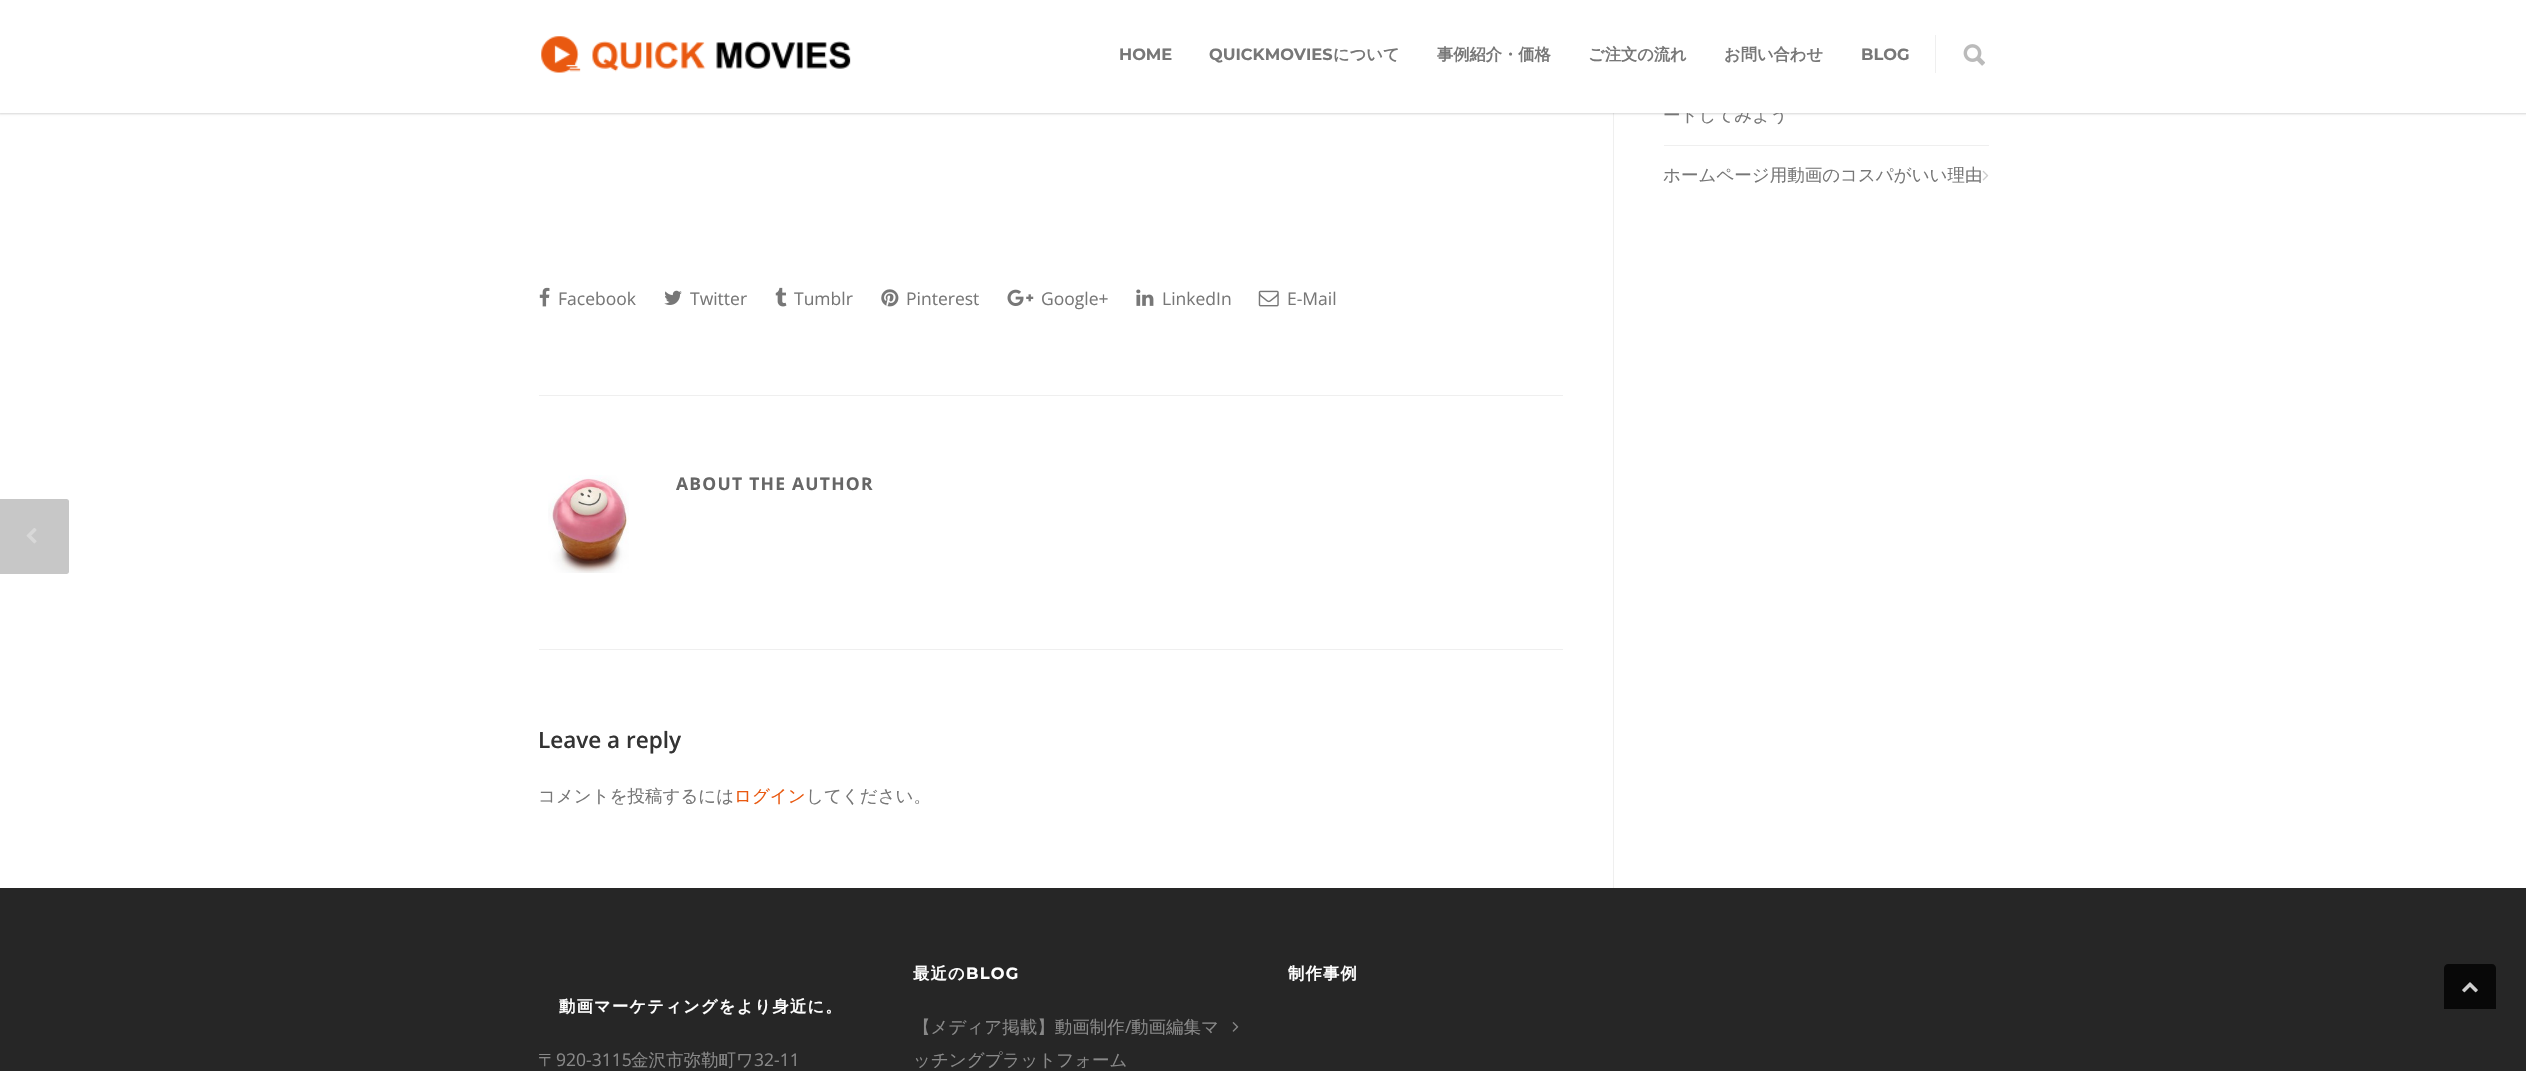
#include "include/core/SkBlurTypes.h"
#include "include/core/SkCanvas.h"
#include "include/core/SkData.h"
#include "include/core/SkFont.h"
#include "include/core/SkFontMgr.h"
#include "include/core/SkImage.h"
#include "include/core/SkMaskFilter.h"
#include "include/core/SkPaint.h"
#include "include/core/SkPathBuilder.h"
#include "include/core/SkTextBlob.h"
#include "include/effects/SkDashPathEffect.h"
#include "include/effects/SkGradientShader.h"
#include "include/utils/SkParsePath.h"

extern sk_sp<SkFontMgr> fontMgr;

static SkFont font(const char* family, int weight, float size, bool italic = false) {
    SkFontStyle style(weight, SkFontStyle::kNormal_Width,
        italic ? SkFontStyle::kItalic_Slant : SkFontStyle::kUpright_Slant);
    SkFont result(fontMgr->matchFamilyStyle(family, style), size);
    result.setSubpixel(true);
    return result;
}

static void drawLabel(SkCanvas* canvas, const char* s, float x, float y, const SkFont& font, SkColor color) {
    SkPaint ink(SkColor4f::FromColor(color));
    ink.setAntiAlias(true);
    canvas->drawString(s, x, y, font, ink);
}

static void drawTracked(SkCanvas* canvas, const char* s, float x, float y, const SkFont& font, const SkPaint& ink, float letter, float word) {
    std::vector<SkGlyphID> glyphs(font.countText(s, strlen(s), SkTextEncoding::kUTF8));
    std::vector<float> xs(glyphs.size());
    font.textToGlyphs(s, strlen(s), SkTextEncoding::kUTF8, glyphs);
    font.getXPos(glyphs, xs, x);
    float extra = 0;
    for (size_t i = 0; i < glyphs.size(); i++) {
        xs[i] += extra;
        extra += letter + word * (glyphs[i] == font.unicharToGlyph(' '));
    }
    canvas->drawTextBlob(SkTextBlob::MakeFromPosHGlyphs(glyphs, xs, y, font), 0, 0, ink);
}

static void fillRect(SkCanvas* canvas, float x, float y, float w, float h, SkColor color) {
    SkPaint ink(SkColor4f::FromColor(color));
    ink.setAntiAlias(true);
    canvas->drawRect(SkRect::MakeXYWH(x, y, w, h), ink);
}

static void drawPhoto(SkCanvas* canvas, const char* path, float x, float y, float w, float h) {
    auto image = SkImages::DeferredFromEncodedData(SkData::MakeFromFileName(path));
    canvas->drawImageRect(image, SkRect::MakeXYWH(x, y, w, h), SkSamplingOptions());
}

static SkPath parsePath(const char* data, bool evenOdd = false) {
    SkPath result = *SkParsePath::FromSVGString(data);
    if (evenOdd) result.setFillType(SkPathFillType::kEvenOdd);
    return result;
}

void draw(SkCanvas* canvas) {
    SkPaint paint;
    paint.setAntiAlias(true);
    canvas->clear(0xFFFFFFFF);
    fillRect(canvas, 1613, 113, 1, 775, 0xFFEFEFEF);
    paint.setColor(0x29000000);
    paint.setMaskFilter(SkMaskFilter::MakeBlur(kNormal_SkBlurStyle, 1));
    canvas->drawRect(SkRect::MakeXYWH(-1, -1, 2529, 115), paint);
    paint.setMaskFilter(nullptr);
    SkFont font1 = font("WenQuanYi Zen Hei", 500, 17.5f);
    drawLabel(canvas, "ードしてみよう", 1663, 121, font1, 0xFF777777);
    fillRect(canvas, 0, 0, 2526, 113, 0xFFFFFFFF);
    drawPhoto(canvas, "assets/img1.png", 541, 36, 310, 37);
    SkFont font2 = font("Montserrat", 700, 16.25f);
    drawLabel(canvas, "HOME", 1119, 60, font2, 0xFF777777);
    drawLabel(canvas, "QUICKMOVIES", 1209, 60, font2, 0xFF777777);
    SkFont font3 = font("WenQuanYi Zen Hei", 700, 16.25f);
    drawLabel(canvas, "について", 1333, 60, font3, 0xFF777777);
    drawLabel(canvas, "事例紹介・価格", 1437, 60, font3, 0xFF777777);
    drawLabel(canvas, "ご注文の流れ", 1588, 60, font3, 0xFF777777);
    drawLabel(canvas, "お問い合わせ", 1724, 60, font3, 0xFF777777);
    drawLabel(canvas, "BLOG", 1861, 60, font2, 0xFF777777);
    fillRect(canvas, 1935, 35, 1, 38, 0xFFEFEFEF);
    drawPhoto(canvas, "assets/img2.png", 1963, 44, 22, 22);
    fillRect(canvas, 1664, 145, 325, 1, 0xFFEFEFEF);
    drawLabel(canvas, "ホームページ用動画のコスパがいい理由", 1663, 181, font1, 0xFF777777);
    drawPhoto(canvas, "assets/img3.png", 1982, 170, 7, 11);
    drawPhoto(canvas, "assets/img4.png", 539, 287, 11, 20);
    SkFont font4 = font("Open Sans", 400, 17.5f);
    drawLabel(canvas, "Facebook", 558, 305, font4, 0xFF777777);
    drawPhoto(canvas, "assets/img5.png", 664, 290, 18, 15);
    drawLabel(canvas, "Twitter", 690, 305, font4, 0xFF777777);
    drawPhoto(canvas, "assets/img6.png", 775, 287, 12, 20);
    drawLabel(canvas, "Tumblr", 794, 305, font4, 0xFF777777);
    drawPhoto(canvas, "assets/img7.png", 881, 289, 18, 18);
    drawLabel(canvas, "Pinterest", 906, 305, font4, 0xFF777777);
    drawPhoto(canvas, "assets/img8.png", 1007, 289, 27, 17);
    drawLabel(canvas, "Google+", 1041, 305, font4, 0xFF777777);
    drawPhoto(canvas, "assets/img9.png", 1136, 289, 18, 17);
    drawLabel(canvas, "LinkedIn", 1162, 305, font4, 0xFF777777);
    drawPhoto(canvas, "assets/img10.png", 1258, 290, 21, 17);
    drawLabel(canvas, "E-Mail", 1287, 305, font4, 0xFF777777);
    fillRect(canvas, 539, 395, 1024, 1, 0xFFEFEFEF);
    drawPhoto(canvas, "assets/img11.png", 548, 475, 81, 98);
    SkFont font5 = font("Open Sans", 700, 17.5f);
    paint.setColor(0xFF666666);
    drawTracked(canvas, "ABOUT THE AUTHOR", 676, 490, font5, paint, 1.25f, 0);
    paint.setColor(0xFFC7C7C7);
    canvas->drawPath(parsePath("M-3 499H66.5C68 499 69 500 69 501.5V571.5C69 573 68 574 66.5 574H-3Z"), paint);
    drawPhoto(canvas, "assets/img12.png", 26, 528, 11, 16);
    fillRect(canvas, 539, 649, 1024, 1, 0xFFEFEFEF);
    SkFont font6 = font("Open Sans", 600, 22.5f);
    drawLabel(canvas, "Leave a reply", 538, 748, font6, 0xFF333333);
    drawLabel(canvas, "コメントを投稿するには", 538, 802, font1, 0xFF777777);
    drawLabel(canvas, "ログイン", 734, 802, font1, 0xFFE95910);
    drawLabel(canvas, "してください。", 806, 802, font1, 0xFF777777);
    fillRect(canvas, 0, 888, 2526, 183, 0xFF262626);
    paint.setColor(0xFFFFFFFF);
    drawTracked(canvas, "最近の", 913, 979, font3, paint, 1.25f, 0);
    drawTracked(canvas, "BLOG", 966, 979, font2, paint, 1.25f, 0);
    drawLabel(canvas, "【メディア掲載】動画制作", 913, 1033, font1, 0xFF888888);
    drawLabel(canvas, "/", 1125, 1033, font4, 0xFF888888);
    drawLabel(canvas, "動画編集マ", 1131, 1033, font1, 0xFF888888);
    drawLabel(canvas, "ッチングプラットフォーム", 913, 1066, font1, 0xFF888888);
    drawPhoto(canvas, "assets/img13.png", 1232, 1022, 7, 10);
    drawTracked(canvas, "制作事例", 1288, 979, font3, paint, 1.25f, 0);
    drawTracked(canvas, "動画マーケティングをより身近に。", 559, 1012, font3, paint, 1.25f, 0);
    drawLabel(canvas, "〒", 538, 1066, font1, 0xFF888888);
    drawLabel(canvas, "920-3115", 556, 1066, font4, 0xFF888888);
    drawLabel(canvas, "金沢市弥勒町ワ", 631, 1066, font1, 0xFF888888);
    drawLabel(canvas, "32-11", 754, 1066, font4, 0xFF888888);
    paint.setColor(0xFF080808);
    canvas->drawPath(parsePath("M2448 964H2492C2494 964 2496 966 2496 968V1009H2444V968C2444 966 2446 964 2448 964Z"), paint);
    drawPhoto(canvas, "assets/img14.png", 2462, 982, 16, 11);
}
